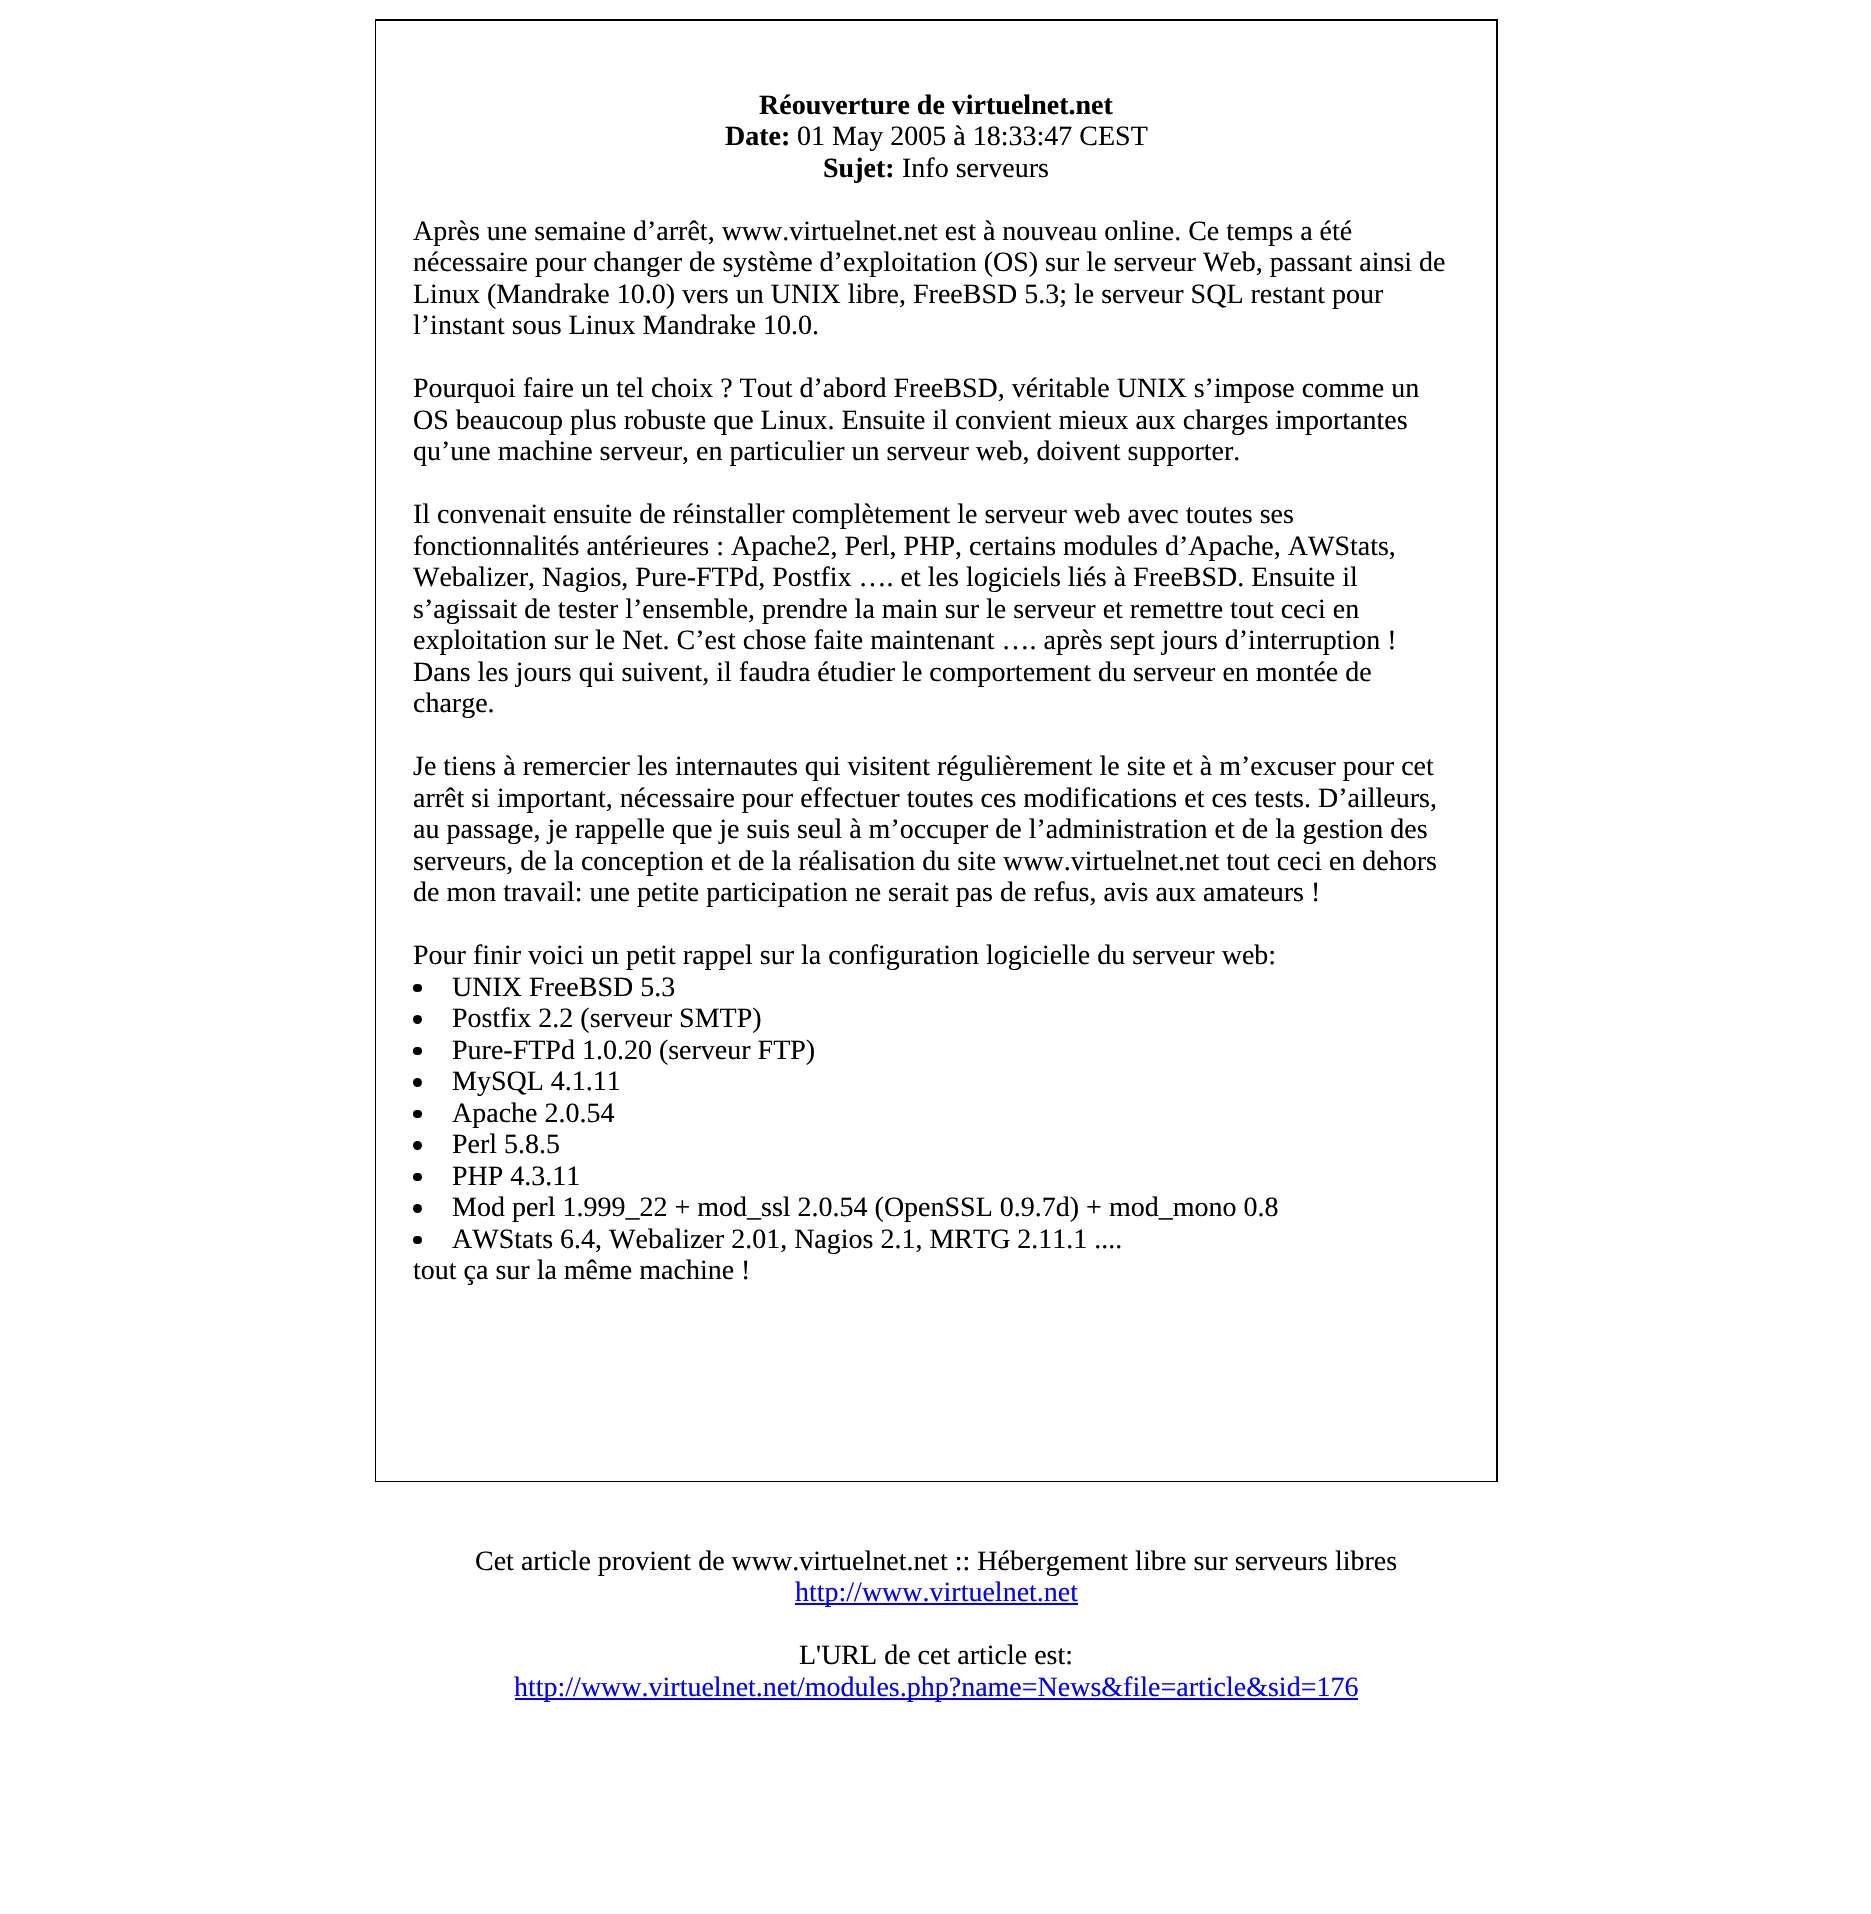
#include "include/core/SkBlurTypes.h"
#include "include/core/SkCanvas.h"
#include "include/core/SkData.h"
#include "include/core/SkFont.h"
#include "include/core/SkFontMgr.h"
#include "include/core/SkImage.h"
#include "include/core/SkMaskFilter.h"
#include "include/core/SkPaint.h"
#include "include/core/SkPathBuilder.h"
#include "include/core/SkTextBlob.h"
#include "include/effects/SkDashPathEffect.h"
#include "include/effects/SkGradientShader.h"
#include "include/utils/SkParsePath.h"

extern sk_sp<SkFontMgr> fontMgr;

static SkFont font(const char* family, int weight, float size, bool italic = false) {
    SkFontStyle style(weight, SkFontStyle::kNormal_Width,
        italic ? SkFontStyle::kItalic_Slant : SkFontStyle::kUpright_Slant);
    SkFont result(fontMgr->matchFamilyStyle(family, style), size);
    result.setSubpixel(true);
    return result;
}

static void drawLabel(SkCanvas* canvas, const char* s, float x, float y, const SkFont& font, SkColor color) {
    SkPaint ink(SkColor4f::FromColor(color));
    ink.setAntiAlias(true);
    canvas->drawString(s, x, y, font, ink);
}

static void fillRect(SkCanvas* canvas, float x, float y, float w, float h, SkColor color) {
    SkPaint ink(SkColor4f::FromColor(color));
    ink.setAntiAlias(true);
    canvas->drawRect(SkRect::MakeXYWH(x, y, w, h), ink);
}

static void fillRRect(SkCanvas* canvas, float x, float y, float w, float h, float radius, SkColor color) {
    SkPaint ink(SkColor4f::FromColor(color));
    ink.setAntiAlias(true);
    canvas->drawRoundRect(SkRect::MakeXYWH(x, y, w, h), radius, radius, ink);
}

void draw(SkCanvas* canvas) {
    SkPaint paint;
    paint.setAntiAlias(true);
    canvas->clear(0xFFFFFFFF);
    fillRect(canvas, 375, 19, 1123, 1463, 0xFF000000);
    fillRect(canvas, 376, 21, 1120, 1460, 0xFFFFFFFF);
    SkFont font1 = font("Liberation Serif", 700, 28);
    drawLabel(canvas, "Réouverture de virtuelnet.net", 759, 114, font1, 0xFF000000);
    drawLabel(canvas, "Date:", 725, 145, font1, 0xFF000000);
    SkFont font2 = font("Liberation Serif", 400, 28);
    drawLabel(canvas, "01 May 2005 à 18:33:47 CEST", 797, 145, font2, 0xFF000000);
    drawLabel(canvas, "Sujet:", 823, 177, font1, 0xFF000000);
    drawLabel(canvas, "Info serveurs", 902, 177, font2, 0xFF000000);
    drawLabel(canvas, "Après une semaine d’arrêt, www.virtuelnet.net est à nouveau online. Ce temps a été", 413, 240, font2, 0xFF000000);
    drawLabel(canvas, "nécessaire pour changer de système d’exploitation (OS) sur le serveur Web, passant ainsi de", 413, 271, font2, 0xFF000000);
    drawLabel(canvas, "Linux (Mandrake 10.0) vers un UNIX libre, FreeBSD 5.3; le serveur SQL restant pour", 413, 303, font2, 0xFF000000);
    drawLabel(canvas, "l’instant sous Linux Mandrake 10.0.", 413, 334, font2, 0xFF000000);
    drawLabel(canvas, "Pourquoi faire un tel choix ? Tout d’abord FreeBSD, véritable UNIX s’impose comme un", 413, 397, font2, 0xFF000000);
    drawLabel(canvas, "OS beaucoup plus robuste que Linux. Ensuite il convient mieux aux charges importantes", 413, 429, font2, 0xFF000000);
    drawLabel(canvas, "qu’une machine serveur, en particulier un serveur web, doivent supporter.", 413, 460, font2, 0xFF000000);
    drawLabel(canvas, "Il convenait ensuite de réinstaller complètement le serveur web avec toutes ses", 413, 523, font2, 0xFF000000);
    drawLabel(canvas, "fonctionnalités antérieures : Apache2, Perl, PHP, certains modules d’Apache, AWStats,", 413, 555, font2, 0xFF000000);
    drawLabel(canvas, "Webalizer, Nagios, Pure-FTPd, Postfix …. et les logiciels liés à FreeBSD. Ensuite il", 413, 586, font2, 0xFF000000);
    drawLabel(canvas, "s’agissait de tester l’ensemble, prendre la main sur le serveur et remettre tout ceci en", 413, 618, font2, 0xFF000000);
    drawLabel(canvas, "exploitation sur le Net. C’est chose faite maintenant …. après sept jours d’interruption !", 413, 649, font2, 0xFF000000);
    drawLabel(canvas, "Dans les jours qui suivent, il faudra étudier le comportement du serveur en montée de", 413, 681, font2, 0xFF000000);
    drawLabel(canvas, "charge.", 413, 712, font2, 0xFF000000);
    drawLabel(canvas, "Je tiens à remercier les internautes qui visitent régulièrement le site et à m’excuser pour cet", 413, 775, font2, 0xFF000000);
    drawLabel(canvas, "arrêt si important, nécessaire pour effectuer toutes ces modifications et ces tests. D’ailleurs,", 413, 807, font2, 0xFF000000);
    drawLabel(canvas, "au passage, je rappelle que je suis seul à m’occuper de l’administration et de la gestion des", 413, 838, font2, 0xFF000000);
    drawLabel(canvas, "serveurs, de la conception et de la réalisation du site www.virtuelnet.net tout ceci en dehors", 413, 870, font2, 0xFF000000);
    drawLabel(canvas, "de mon travail: une petite participation ne serait pas de refus, avis aux amateurs !", 413, 901, font2, 0xFF000000);
    drawLabel(canvas, "Pour finir voici un petit rappel sur la configuration logicielle du serveur web:", 413, 964, font2, 0xFF000000);
    fillRRect(canvas, 413, 984, 9, 8, 4, 0xFF000000);
    drawLabel(canvas, "UNIX FreeBSD 5.3", 452, 996, font2, 0xFF000000);
    paint.setColor(0xFF000000);
    canvas->drawCircle(417.5f, 1019.5f, 4.5f, paint);
    drawLabel(canvas, "Postfix 2.2 (serveur SMTP)", 452, 1027, font2, 0xFF000000);
    fillRRect(canvas, 413, 1047, 9, 8, 4, 0xFF000000);
    drawLabel(canvas, "Pure-FTPd 1.0.20 (serveur FTP)", 452, 1059, font2, 0xFF000000);
    canvas->drawCircle(417.5f, 1082.5f, 4.5f, paint);
    drawLabel(canvas, "MySQL 4.1.11", 452, 1090, font2, 0xFF000000);
    fillRRect(canvas, 413, 1110, 9, 8, 4, 0xFF000000);
    drawLabel(canvas, "Apache 2.0.54", 452, 1122, font2, 0xFF000000);
    canvas->drawCircle(417.5f, 1145.5f, 4.5f, paint);
    drawLabel(canvas, "Perl 5.8.5", 452, 1153, font2, 0xFF000000);
    fillRRect(canvas, 413, 1173, 9, 8, 4, 0xFF000000);
    drawLabel(canvas, "PHP 4.3.11", 452, 1185, font2, 0xFF000000);
    canvas->drawCircle(417.5f, 1208.5f, 4.5f, paint);
    drawLabel(canvas, "Mod perl 1.999_22 + mod_ssl 2.0.54 (OpenSSL 0.9.7d) + mod_mono 0.8", 452, 1216, font2, 0xFF000000);
    fillRRect(canvas, 413, 1236, 9, 8, 4, 0xFF000000);
    drawLabel(canvas, "AWStats 6.4, Webalizer 2.01, Nagios 2.1, MRTG 2.11.1 ....", 452, 1248, font2, 0xFF000000);
    drawLabel(canvas, "tout ça sur la même machine !", 413, 1279, font2, 0xFF000000);
    drawLabel(canvas, "Cet article provient de www.virtuelnet.net :: Hébergement libre sur serveurs libres", 475, 1570, font2, 0xFF000000);
    fillRect(canvas, 795, 1603, 283, 2, 0xFF0000EE);
    drawLabel(canvas, "http://www.virtuelnet.net", 795, 1601, font2, 0xFF0000EE);
    drawLabel(canvas, "L'URL de cet article est:", 799, 1664, font2, 0xFF000000);
    fillRect(canvas, 515, 1698, 843, 2, 0xFF0000EE);
    drawLabel(canvas, "http://www.virtuelnet.net/modules.php?name=News&file=article&sid=176", 514, 1696, font2, 0xFF0000EE);
}
